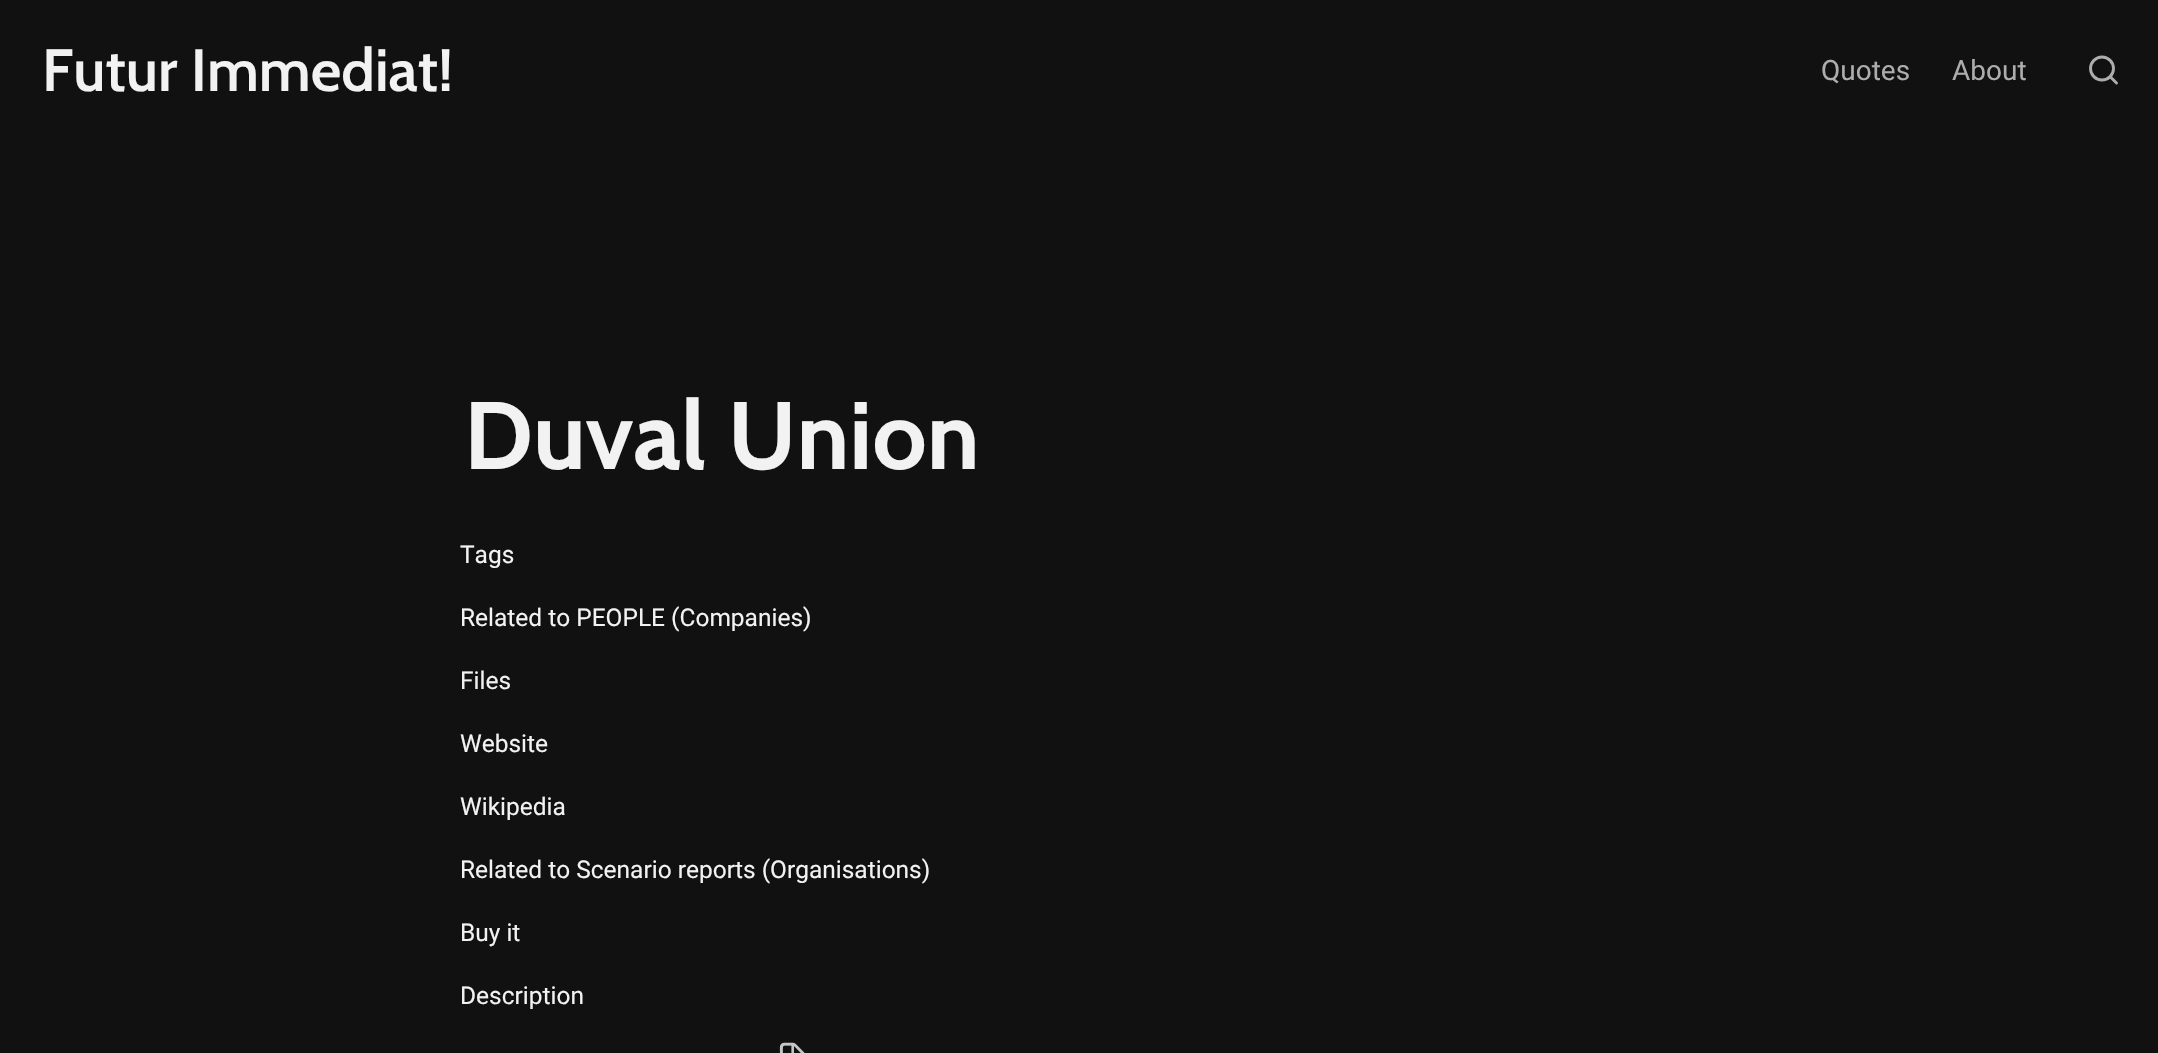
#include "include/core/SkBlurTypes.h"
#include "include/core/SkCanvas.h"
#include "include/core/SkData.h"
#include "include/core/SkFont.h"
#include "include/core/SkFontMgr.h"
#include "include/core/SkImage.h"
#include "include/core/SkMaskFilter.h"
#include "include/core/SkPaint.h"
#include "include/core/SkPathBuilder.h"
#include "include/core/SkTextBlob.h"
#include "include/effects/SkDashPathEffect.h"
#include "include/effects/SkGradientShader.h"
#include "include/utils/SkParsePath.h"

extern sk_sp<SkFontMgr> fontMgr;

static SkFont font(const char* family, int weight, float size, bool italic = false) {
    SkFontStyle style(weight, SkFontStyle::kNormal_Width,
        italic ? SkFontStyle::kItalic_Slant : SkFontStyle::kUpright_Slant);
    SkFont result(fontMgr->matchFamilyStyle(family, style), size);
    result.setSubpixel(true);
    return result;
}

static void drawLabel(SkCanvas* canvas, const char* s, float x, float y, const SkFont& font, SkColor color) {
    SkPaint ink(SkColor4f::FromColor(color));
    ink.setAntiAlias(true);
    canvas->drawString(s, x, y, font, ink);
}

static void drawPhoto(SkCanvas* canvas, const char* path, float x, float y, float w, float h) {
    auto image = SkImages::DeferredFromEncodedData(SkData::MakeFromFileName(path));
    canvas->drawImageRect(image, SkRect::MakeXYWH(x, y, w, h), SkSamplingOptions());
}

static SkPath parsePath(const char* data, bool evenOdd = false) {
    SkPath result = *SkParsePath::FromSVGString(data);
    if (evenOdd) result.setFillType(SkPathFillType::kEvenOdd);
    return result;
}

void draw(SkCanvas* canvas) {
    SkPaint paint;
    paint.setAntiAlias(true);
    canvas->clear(0xFF111111);
    SkFont font1 = font("Cabin", 600, 59.5f);
    drawLabel(canvas, "Futur Immediat!", 42, 91, font1, 0xFFF2F2F2);
    SkFont font2 = font("Roboto", 400, 28);
    drawLabel(canvas, "Quotes", 1821, 80, font2, 0xFFADADAD);
    drawLabel(canvas, "About", 1952, 80, font2, 0xFFADADAD);
    paint.setStroke(true);
    paint.setStrokeWidth(2.9f);
    paint.setColor(0xFFADADAD);
    canvas->drawCircle(2102, 68.5f, 11.5f, paint);
    paint.setStrokeCap(SkPaint::kRound_Cap);
    paint.setStrokeJoin(SkPaint::kRound_Join);
    canvas->drawPath(parsePath("M2116.5 83L2110.5 77"), paint);
    SkFont font3 = font("Cabin", 700, 95.75f);
    drawLabel(canvas, "Duval Union", 464, 469, font3, 0xFFF2F2F2);
    SkFont font4 = font("Roboto", 400, 24.5f);
    drawLabel(canvas, "Tags", 460, 563, font4, 0xFFF2F2F2);
    drawLabel(canvas, "Related to PEOPLE (Companies)", 460, 626, font4, 0xFFF2F2F2);
    drawLabel(canvas, "Files", 460, 689, font4, 0xFFF2F2F2);
    drawLabel(canvas, "Website", 460, 752, font4, 0xFFF2F2F2);
    drawLabel(canvas, "Wikipedia", 460, 815, font4, 0xFFF2F2F2);
    drawLabel(canvas, "Related to Scenario reports (Organisations)", 460, 878, font4, 0xFFF2F2F2);
    drawLabel(canvas, "Buy it", 460, 941, font4, 0xFFF2F2F2);
    drawLabel(canvas, "Description", 460, 1004, font4, 0xFFF2F2F2);
    drawPhoto(canvas, "assets/img1.png", 779, 1042, 26, 11);
}
